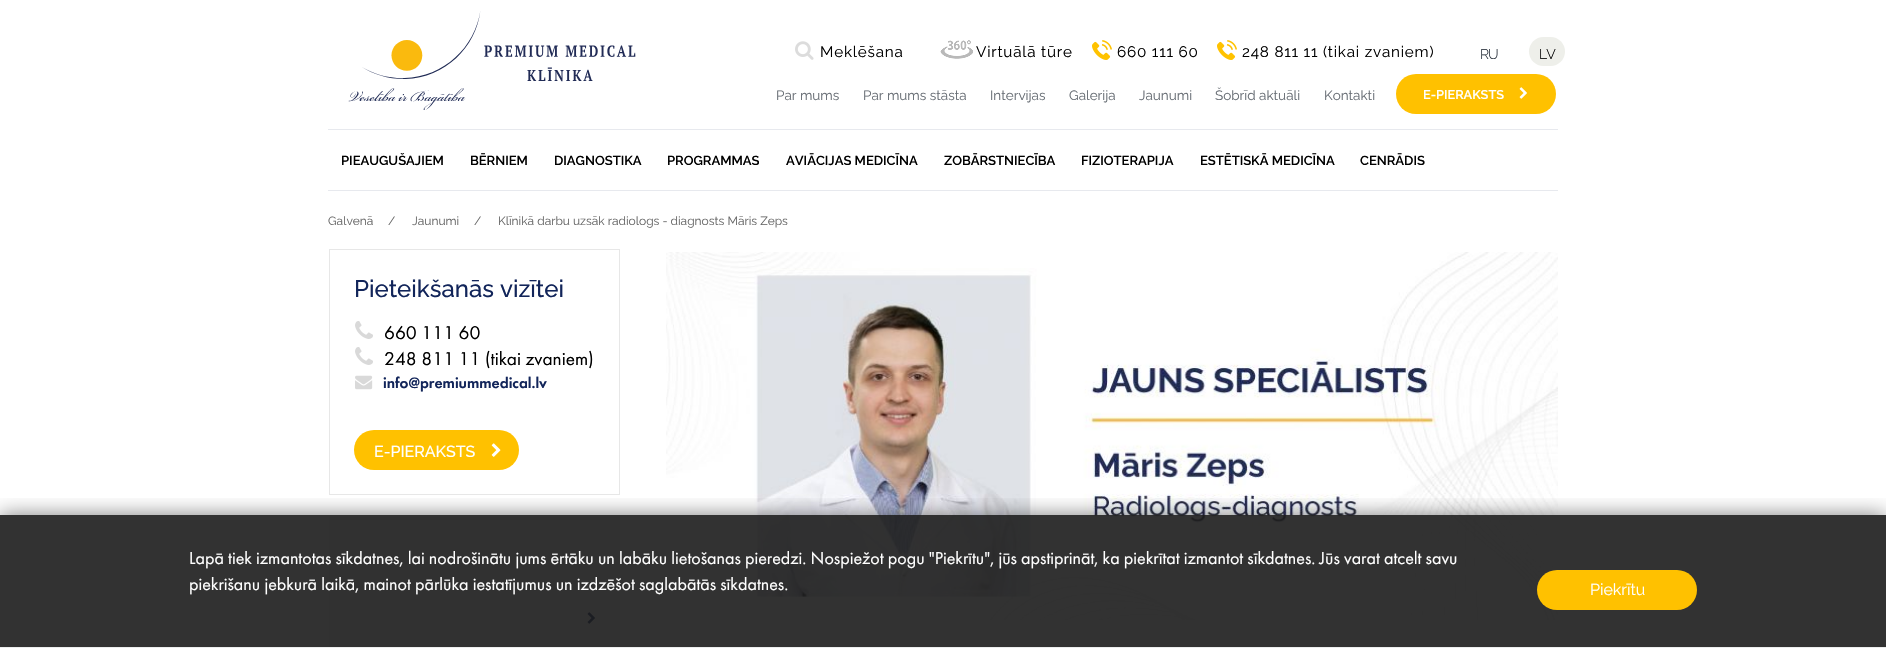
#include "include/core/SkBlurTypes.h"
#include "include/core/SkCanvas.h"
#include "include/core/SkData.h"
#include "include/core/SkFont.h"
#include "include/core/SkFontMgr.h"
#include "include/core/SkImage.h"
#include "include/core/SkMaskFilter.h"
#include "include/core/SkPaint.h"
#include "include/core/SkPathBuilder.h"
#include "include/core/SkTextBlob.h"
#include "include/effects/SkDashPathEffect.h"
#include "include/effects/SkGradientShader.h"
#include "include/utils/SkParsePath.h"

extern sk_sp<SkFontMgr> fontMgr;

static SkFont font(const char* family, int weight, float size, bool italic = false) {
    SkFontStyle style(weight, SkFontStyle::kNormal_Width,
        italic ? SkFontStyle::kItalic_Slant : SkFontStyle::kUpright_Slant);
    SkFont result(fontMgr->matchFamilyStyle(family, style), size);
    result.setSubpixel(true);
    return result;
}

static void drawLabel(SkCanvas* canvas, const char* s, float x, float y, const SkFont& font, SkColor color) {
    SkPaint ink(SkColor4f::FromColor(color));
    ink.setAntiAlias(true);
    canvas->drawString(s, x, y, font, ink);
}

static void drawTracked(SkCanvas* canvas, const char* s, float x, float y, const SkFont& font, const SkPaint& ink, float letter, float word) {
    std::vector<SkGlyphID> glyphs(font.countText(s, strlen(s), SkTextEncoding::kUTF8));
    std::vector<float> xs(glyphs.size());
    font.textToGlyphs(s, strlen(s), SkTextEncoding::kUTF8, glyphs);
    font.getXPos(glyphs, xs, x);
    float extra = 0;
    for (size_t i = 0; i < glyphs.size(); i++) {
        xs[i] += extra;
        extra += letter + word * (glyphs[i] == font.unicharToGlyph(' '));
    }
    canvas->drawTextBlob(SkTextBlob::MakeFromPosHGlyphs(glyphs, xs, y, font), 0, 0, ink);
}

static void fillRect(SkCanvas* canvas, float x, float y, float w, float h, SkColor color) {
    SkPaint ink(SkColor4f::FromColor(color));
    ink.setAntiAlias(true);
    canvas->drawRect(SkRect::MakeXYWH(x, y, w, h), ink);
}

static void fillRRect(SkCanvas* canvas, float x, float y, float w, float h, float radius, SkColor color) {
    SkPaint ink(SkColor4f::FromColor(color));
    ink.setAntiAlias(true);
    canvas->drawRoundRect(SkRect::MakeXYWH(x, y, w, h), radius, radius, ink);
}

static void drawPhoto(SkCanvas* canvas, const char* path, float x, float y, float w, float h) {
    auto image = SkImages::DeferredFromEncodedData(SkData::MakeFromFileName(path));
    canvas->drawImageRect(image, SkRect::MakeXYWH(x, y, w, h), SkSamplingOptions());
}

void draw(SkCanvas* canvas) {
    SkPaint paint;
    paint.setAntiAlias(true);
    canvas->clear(0xFFFFFFFF);
    drawPhoto(canvas, "assets/img1.png", 348, 11, 288, 99);
    drawPhoto(canvas, "assets/img2.png", 795, 41, 19, 19);
    SkFont font1 = font("Raleway", 400, 15.25f);
    paint.setColor(0xFF000000);
    drawTracked(canvas, "Meklēšana", 820, 57, font1, paint, 0.8f, 0);
    drawPhoto(canvas, "assets/img3.png", 940, 40, 33, 19);
    drawTracked(canvas, "Virtuālā tūre", 976, 57, font1, paint, 0.8f, 0);
    drawPhoto(canvas, "assets/img4.png", 1092, 40, 20, 20);
    drawTracked(canvas, "660 111 60", 1117, 57, font1, paint, 0.8f, 0);
    drawPhoto(canvas, "assets/img4.png", 1217, 40, 20, 20);
    drawTracked(canvas, "248 811 11 (tikai zvaniem)", 1242, 57, font1, paint, 0.8f, 0);
    SkFont font2 = font("Raleway", 300, 14);
    paint.setColor(0xFF262E39);
    drawTracked(canvas, "RU", 1480, 59, font2, paint, -1, 0);
    fillRRect(canvas, 1529, 37, 36, 29, 14.5f, 0xFFEEEFEA);
    paint.setColor(0xFF000000);
    drawTracked(canvas, "LV", 1539, 59, font2, paint, -1, 0);
    SkFont font3 = font("Raleway", 400, 13.5f);
    drawLabel(canvas, "Par mums", 776, 100, font3, 0xFF676D74);
    drawLabel(canvas, "Par mums stāsta", 863, 100, font3, 0xFF676D74);
    drawLabel(canvas, "Intervijas", 990, 100, font3, 0xFF676D74);
    drawLabel(canvas, "Galerija", 1069, 100, font3, 0xFF676D74);
    drawLabel(canvas, "Jaunumi", 1139, 100, font3, 0xFF676D74);
    drawLabel(canvas, "Šobrīd aktuāli", 1215, 100, font3, 0xFF676D74);
    drawLabel(canvas, "Kontakti", 1324, 100, font3, 0xFF676D74);
    fillRRect(canvas, 1396, 74, 160, 40, 20, 0xFFFFC100);
    SkFont font4 = font("Raleway", 600, 12.75f);
    drawLabel(canvas, "E-PIERAKSTS", 1423, 99, font4, 0xFFFFFFFF);
    drawPhoto(canvas, "assets/img5.png", 1519, 87, 8, 12);
    fillRect(canvas, 328, 129, 1230, 1, 0xFFE7E9EE);
    SkFont font5 = font("Raleway", 600, 13);
    drawLabel(canvas, "PIEAUGUŠAJIEM", 341, 165, font5, 0xFF000000);
    drawLabel(canvas, "BĒRNIEM", 470, 165, font5, 0xFF000000);
    drawLabel(canvas, "DIAGNOSTIKA", 554, 165, font5, 0xFF000000);
    drawLabel(canvas, "PROGRAMMAS", 667, 165, font5, 0xFF000000);
    drawLabel(canvas, "AVIĀCIJAS MEDICĪNA", 786, 165, font5, 0xFF000000);
    drawLabel(canvas, "ZOBĀRSTNIECĪBA", 944, 165, font5, 0xFF000000);
    drawLabel(canvas, "FIZIOTERAPIJA", 1081, 165, font5, 0xFF000000);
    drawLabel(canvas, "ESTĒTISKĀ MEDICĪNA", 1200, 165, font5, 0xFF000000);
    drawLabel(canvas, "CENRĀDIS", 1360, 165, font5, 0xFF000000);
    fillRect(canvas, 328, 190, 1230, 1, 0xFFE7E9EE);
    SkFont font6 = font("Raleway", 400, 12);
    drawLabel(canvas, "Galvenā", 328, 225, font6, 0xFF666666);
    drawLabel(canvas, "/", 388, 225, font6, 0xFF666666);
    drawLabel(canvas, "Jaunumi", 412, 225, font6, 0xFF666666);
    drawLabel(canvas, "/", 474, 225, font6, 0xFF666666);
    drawLabel(canvas, "Klīnikā darbu uzsāk radiologs - diagnosts Māris Zeps", 498, 225, font6, 0xFF666666);
    paint.setStroke(true);
    paint.setStrokeWidth(1);
    paint.setColor(0xFFE7E7E7);
    canvas->drawRect(SkRect::MakeXYWH(329.5f, 249.5f, 290, 245), paint);
    SkFont font7 = font("Raleway", 500, 24);
    drawLabel(canvas, "Pieteikšanās vizītei", 354, 297, font7, 0xFF12255A);
    drawPhoto(canvas, "assets/img6.png", 355, 321, 18, 18);
    SkFont font8 = font("Futura PT", 400, 19.25f);
    drawLabel(canvas, "660 111 60", 384, 339, font8, 0xFF000000);
    drawPhoto(canvas, "assets/img6.png", 355, 347, 18, 18);
    drawLabel(canvas, "248 811 11 (tikai zvaniem)", 384, 365, font8, 0xFF000000);
    drawPhoto(canvas, "assets/img7.png", 355, 375, 18, 15);
    SkFont font9 = font("Futura PT", 600, 15.6f);
    drawLabel(canvas, "info@premiummedical.lv", 383, 388, font9, 0xFF12255A);
    fillRRect(canvas, 354, 430, 165, 40, 20, 0xFFFFC100);
    SkFont font10 = font("Raleway", 500, 16);
    drawLabel(canvas, "E-PIERAKSTS", 374, 457, font10, 0xFFFFFFFF);
    drawPhoto(canvas, "assets/img8.png", 491, 443, 10, 14);
    fillRect(canvas, 329, 517, 291, 130, 0xFFF2F2F2);
    drawPhoto(canvas, "assets/img9.png", 587, 612, 8, 12);
    drawPhoto(canvas, "assets/img10.png", 666, 252, 892, 368);
    canvas->save();
    canvas->clipRect(SkRect::MakeXYWH(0, 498, 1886, 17));
    paint.setStroke(false);
    paint.setColor(0x80000000);
    paint.setMaskFilter(SkMaskFilter::MakeBlur(kNormal_SkBlurStyle, 10));
    canvas->drawRect(SkRect::MakeXYWH(0, 515, 1886, 133), paint);
    paint.setMaskFilter(nullptr);
    canvas->restore();
    fillRect(canvas, 0, 515, 1886, 132, 0xE61C1C1C);
    fillRect(canvas, 0, 647, 1886, 1, 0xFFECEDED);
    SkFont font11 = font("Futura PT", 400, 18);
    drawLabel(canvas, "Lapā tiek izmantotas sīkdatnes, lai nodrošinātu jums ērtāku un labāku lietošanas pieredzi. Nospiežot pogu \"Piekrītu\", jūs apstiprināt, ka piekrītat izmantot sīkdatnes. Jūs varat atcelt savu", 189, 564, font11, 0xFFFFFFFF);
    drawLabel(canvas, "piekrišanu jebkurā laikā, mainot pārlūka iestatījumus un izdzēšot saglabātās sīkdatnes.", 189, 590, font11, 0xFFFFFFFF);
    fillRRect(canvas, 1537, 570, 160, 40, 20, 0xFFFFC100);
    SkFont font12 = font("Raleway", 400, 16);
    drawLabel(canvas, "Piekrītu", 1590, 595, font12, 0xFFFFFFFF);
}
